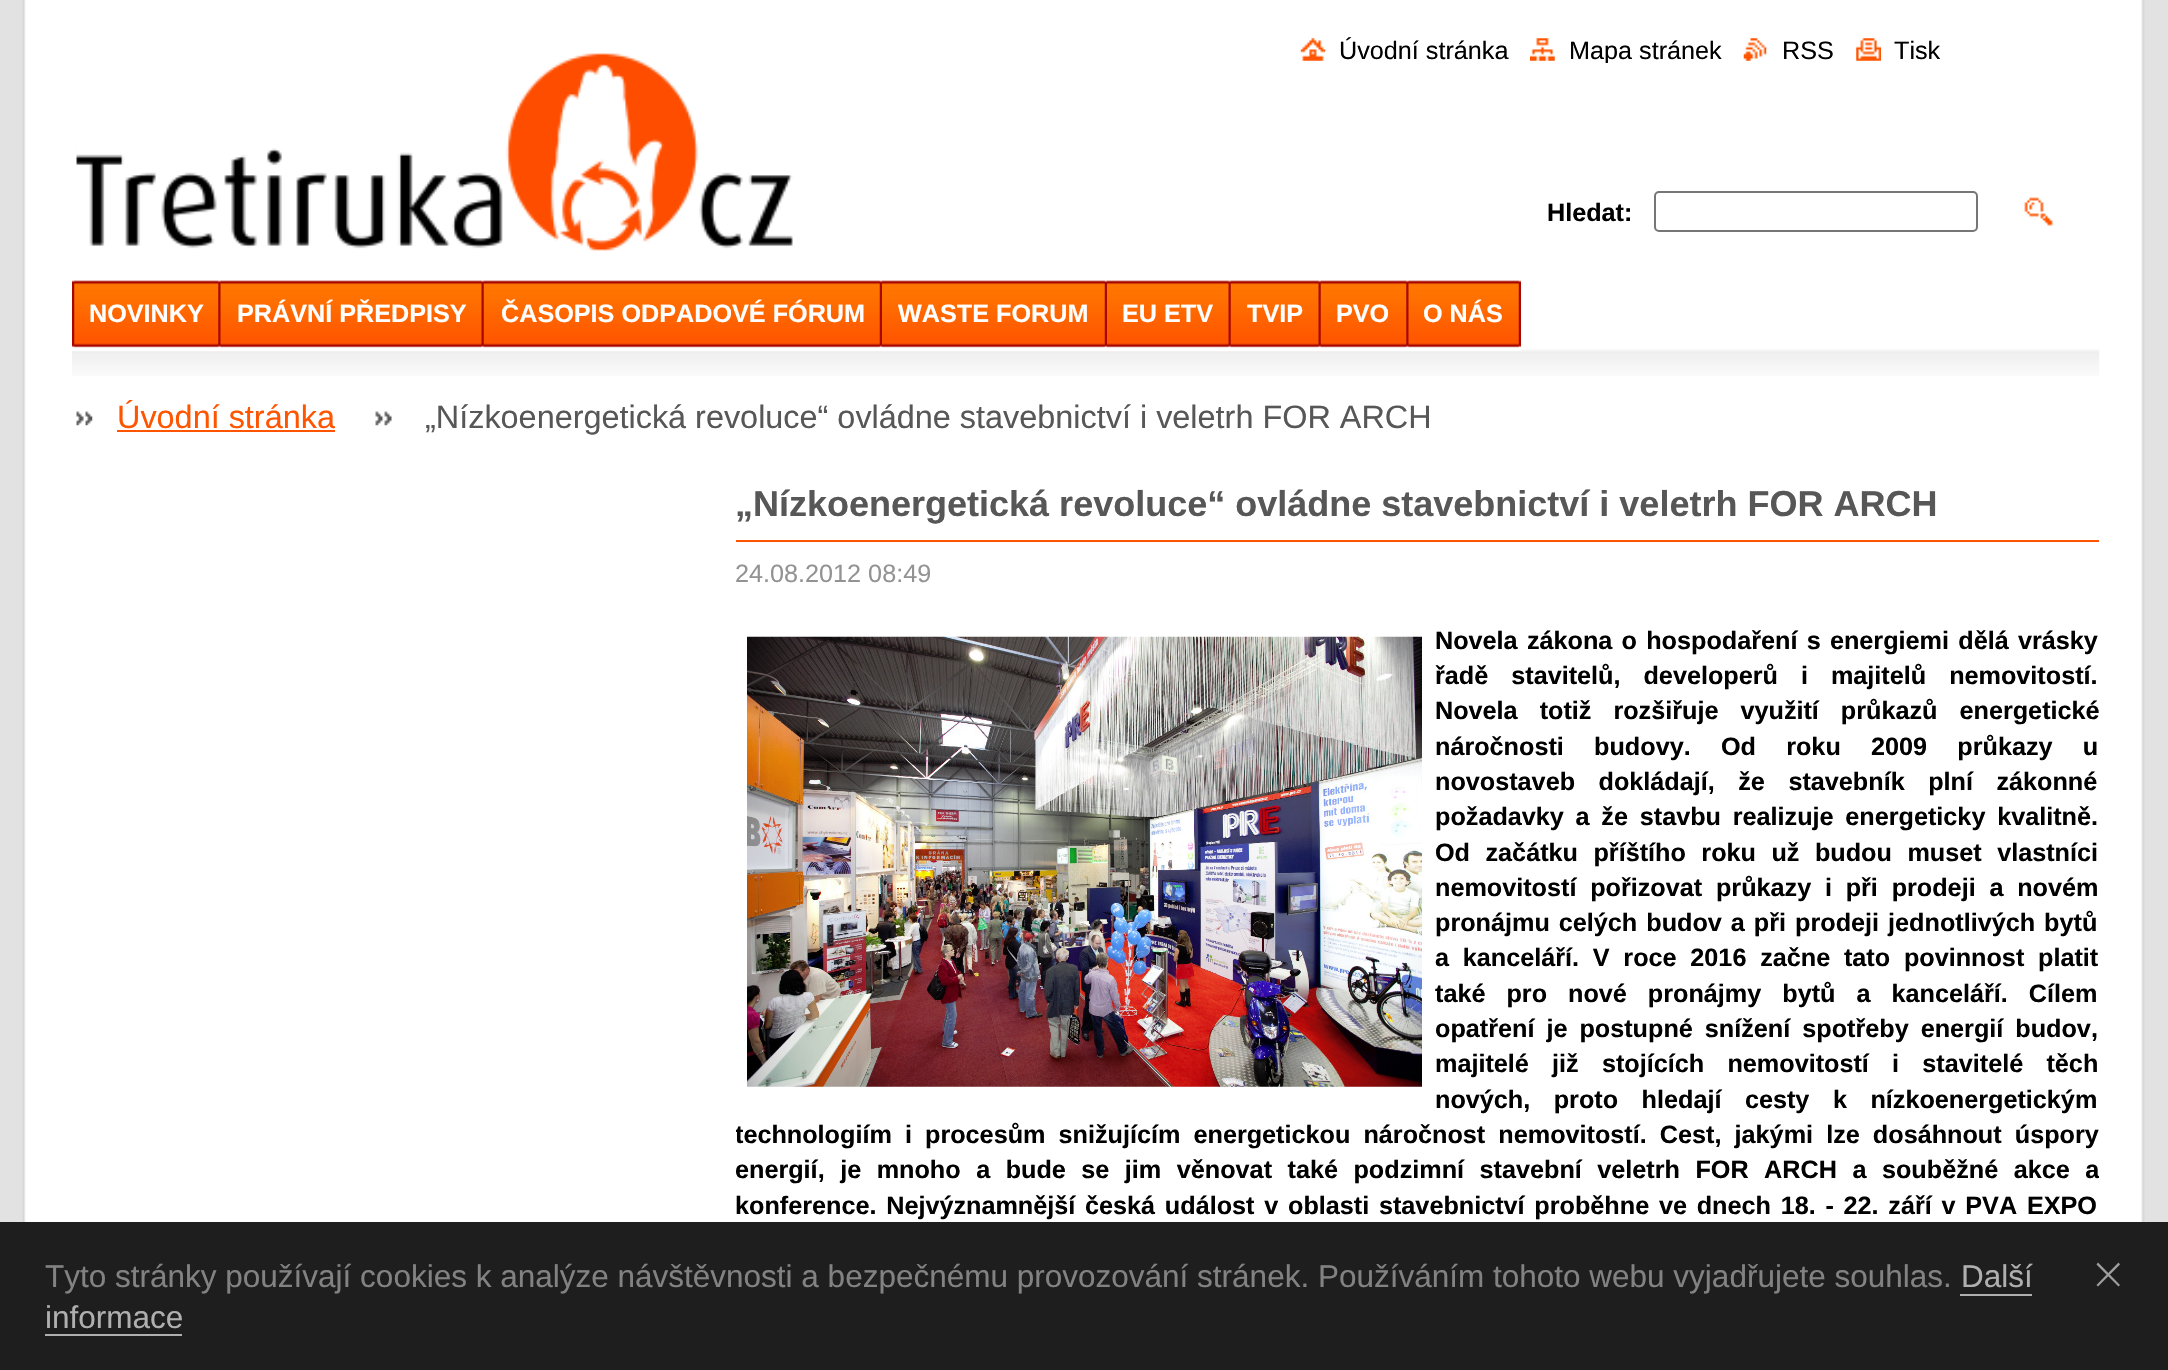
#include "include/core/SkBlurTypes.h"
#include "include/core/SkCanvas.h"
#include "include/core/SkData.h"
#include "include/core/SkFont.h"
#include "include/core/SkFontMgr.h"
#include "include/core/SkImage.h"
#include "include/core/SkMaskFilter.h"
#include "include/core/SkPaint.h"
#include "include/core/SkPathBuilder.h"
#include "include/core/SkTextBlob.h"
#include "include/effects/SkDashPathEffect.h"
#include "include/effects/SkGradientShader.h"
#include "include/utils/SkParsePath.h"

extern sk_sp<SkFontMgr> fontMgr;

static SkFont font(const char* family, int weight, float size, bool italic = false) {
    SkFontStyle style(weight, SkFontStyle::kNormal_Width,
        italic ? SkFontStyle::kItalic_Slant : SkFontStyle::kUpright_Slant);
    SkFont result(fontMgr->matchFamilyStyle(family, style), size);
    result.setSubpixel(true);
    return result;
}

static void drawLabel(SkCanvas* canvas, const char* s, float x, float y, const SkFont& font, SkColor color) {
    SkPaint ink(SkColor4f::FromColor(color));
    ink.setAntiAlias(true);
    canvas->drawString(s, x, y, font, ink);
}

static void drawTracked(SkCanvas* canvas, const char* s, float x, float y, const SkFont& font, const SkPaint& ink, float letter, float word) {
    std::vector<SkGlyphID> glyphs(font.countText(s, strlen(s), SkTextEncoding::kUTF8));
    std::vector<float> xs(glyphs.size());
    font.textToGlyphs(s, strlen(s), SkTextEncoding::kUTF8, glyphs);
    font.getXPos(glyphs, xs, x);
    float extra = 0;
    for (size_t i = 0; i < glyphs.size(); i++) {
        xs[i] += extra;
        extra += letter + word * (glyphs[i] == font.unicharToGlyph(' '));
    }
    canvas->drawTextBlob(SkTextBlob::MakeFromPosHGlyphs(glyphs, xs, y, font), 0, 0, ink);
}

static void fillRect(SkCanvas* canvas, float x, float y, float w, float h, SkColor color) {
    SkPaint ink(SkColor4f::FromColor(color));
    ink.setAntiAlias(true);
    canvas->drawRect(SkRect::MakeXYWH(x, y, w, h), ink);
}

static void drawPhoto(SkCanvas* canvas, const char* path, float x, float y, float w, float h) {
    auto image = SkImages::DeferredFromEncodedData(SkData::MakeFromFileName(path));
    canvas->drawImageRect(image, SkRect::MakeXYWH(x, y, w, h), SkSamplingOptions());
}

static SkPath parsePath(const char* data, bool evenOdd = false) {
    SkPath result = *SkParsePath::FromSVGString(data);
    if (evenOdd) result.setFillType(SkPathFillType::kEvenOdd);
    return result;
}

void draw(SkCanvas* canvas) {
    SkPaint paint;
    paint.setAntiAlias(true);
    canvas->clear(0xFFE2E2E2);
    drawPhoto(canvas, "assets/img1.png", 22, 0, 2123, 1222);
    drawPhoto(canvas, "assets/img2.png", 76, 53, 717, 198);
    drawPhoto(canvas, "assets/img3.png", 1300, 38, 26, 23);
    SkFont font1 = font("Liberation Sans", 400, 25.2f);
    drawLabel(canvas, "Úvodní stránka", 1339, 59, font1, 0xFF000000);
    drawPhoto(canvas, "assets/img4.png", 1530, 38, 25, 23);
    canvas->save();
    canvas->clipRect(SkRect::MakeXYWH(1301, 36, 663, 27));
    drawLabel(canvas, "Mapa stránek", 1569, 59, font1, 0xFF000000);
    canvas->restore();
    drawPhoto(canvas, "assets/img5.png", 1743, 38, 24, 23);
    drawLabel(canvas, "RSS", 1782, 59, font1, 0xFF000000);
    drawPhoto(canvas, "assets/img6.png", 1856, 38, 25, 23);
    drawLabel(canvas, "Tisk", 1894, 59, font1, 0xFF000000);
    SkFont font2 = font("Liberation Sans", 700, 25.2f);
    drawLabel(canvas, "Hledat:", 1547, 221, font2, 0xFF000000);
    paint.setStroke(true);
    paint.setStrokeWidth(2);
    paint.setColor(0xFF767676);
    canvas->drawRoundRect(SkRect::MakeXYWH(1655, 192, 322, 39), 4, 4, paint);
    drawPhoto(canvas, "assets/img7.png", 2024, 197, 29, 29);
    drawPhoto(canvas, "assets/img17.png", 72, 349, 2028, 27);
    drawPhoto(canvas, "assets/img8.png", 72, 280, 1449, 71);
    drawPhoto(canvas, "assets/img9.png", 74, 280, 145, 68);
    drawLabel(canvas, "NOVINKY", 89, 322, font2, 0xFFFFFFFF);
    drawPhoto(canvas, "assets/img10.png", 220, 280, 262, 68);
    drawLabel(canvas, "PRÁVNÍ PŘEDPISY", 237, 322, font2, 0xFFFFFFFF);
    drawPhoto(canvas, "assets/img11.png", 483, 280, 397, 68);
    drawLabel(canvas, "ČASOPIS ODPADOVÉ FÓRUM", 501, 322, font2, 0xFFFFFFFF);
    drawPhoto(canvas, "assets/img12.png", 882, 280, 223, 68);
    drawLabel(canvas, "WASTE FORUM", 898, 322, font2, 0xFFFFFFFF);
    drawPhoto(canvas, "assets/img13.png", 1107, 280, 122, 68);
    drawLabel(canvas, "EU ETV", 1122, 322, font2, 0xFFFFFFFF);
    drawPhoto(canvas, "assets/img14.png", 1230, 280, 89, 68);
    drawLabel(canvas, "TVIP", 1247, 322, font2, 0xFFFFFFFF);
    drawPhoto(canvas, "assets/img15.png", 1320, 280, 87, 68);
    drawLabel(canvas, "PVO", 1336, 322, font2, 0xFFFFFFFF);
    drawPhoto(canvas, "assets/img16.png", 1408, 280, 111, 68);
    drawLabel(canvas, "O NÁS", 1423, 322, font2, 0xFFFFFFFF);
    drawPhoto(canvas, "assets/img18.png", 76, 411, 17, 15);
    SkFont font3 = font("Liberation Sans", 400, 32.4f);
    drawLabel(canvas, "Úvodní stránka", 117, 428, font3, 0xFFFF5500);
    fillRect(canvas, 117, 430, 218, 2, 0xFFFF5500);
    drawPhoto(canvas, "assets/img19.png", 375, 411, 17, 15);
    drawLabel(canvas, "„Nízkoenergetická revoluce“ ovládne stavebnictví i veletrh FOR ARCH", 425, 428, font3, 0xFF575757);
    SkFont font4 = font("Liberation Sans", 700, 36);
    drawLabel(canvas, "„Nízkoenergetická revoluce“ ovládne stavebnictví i veletrh FOR ARCH", 735, 516, font4, 0xFF575757);
    fillRect(canvas, 736, 540, 1363, 2, 0xFFFF5500);
    drawLabel(canvas, "24.08.2012 08:49", 735, 582, font1, 0xFF939393);
    drawPhoto(canvas, "assets/img20.png", 747, 636, 675, 451);
    paint.setStroke(false);
    paint.setColor(0xFF000000);
    drawTracked(canvas, "Novela zákona o hospodaření s energiemi dělá vrásky", 1435, 649, font2, paint, 0, 2.25f);
    drawTracked(canvas, "řadě stavitelů, developerů i majitelů nemovitostí.", 1435, 684, font2, paint, 0, 16);
    drawTracked(canvas, "Novela totiž rozšiřuje využití průkazů energetické", 1435, 719, font2, paint, 0, 15);
    drawTracked(canvas, "náročnosti budovy. Od roku 2009 průkazy u", 1435, 755, font2, paint, 0, 23.25f);
    drawTracked(canvas, "novostaveb dokládají, že stavebník plní zákonné", 1435, 790, font2, paint, 0, 16.5f);
    drawTracked(canvas, "požadavky a že stavbu realizuje energeticky kvalitně.", 1435, 825, font2, paint, 0, 4.75f);
    drawTracked(canvas, "Od začátku příštího roku už budou muset vlastníci", 1435, 861, font2, paint, 0, 8.5f);
    drawTracked(canvas, "nemovitostí pořizovat průkazy i při prodeji a novém", 1435, 896, font2, paint, 0, 6.75f);
    drawTracked(canvas, "pronájmu celých budov a při prodeji jednotlivých bytů", 1435, 931, font2, paint, 0, 2);
    drawTracked(canvas, "a kanceláří. V roce 2016 začne tato povinnost platit", 1435, 966, font2, paint, 0, 6.75f);
    drawTracked(canvas, "také pro nové pronájmy bytů a kanceláří. Cílem", 1435, 1002, font2, paint, 0, 14);
    drawTracked(canvas, "opatření je postupné snížení spotřeby energií budov,", 1435, 1037, font2, paint, 0, 5);
    drawTracked(canvas, "majitelé již stojících nemovitostí i stavitelé těch", 1435, 1072, font2, paint, 0, 16.25f);
    drawTracked(canvas, "nových, proto hledají cesty k nízkoenergetickým", 1435, 1108, font2, paint, 0, 16.5f);
    canvas->save();
    canvas->clipRect(SkRect::MakeXYWH(736, 484, 1363, 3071));
    drawTracked(canvas, "technologiím i procesům snižujícím energetickou náročnost nemovitostí. Cest, jakými lze dosáhnout úspory", 735, 1143, font2, paint, 0, 6.1f);
    drawTracked(canvas, "energií, je mnoho a bude se jim věnovat také podzimní stavební veletrh FOR ARCH a souběžné akce a", 735, 1178, font2, paint, 0, 8.5f);
    canvas->restore();
    drawTracked(canvas, "konference. Nejvýznamnější česká událost v oblasti stavebnictví proběhne ve dnech 18. - 22. září v PVA EXPO", 735, 1214, font2, paint, 0, 2.75f);
    fillRect(canvas, 0, 1222, 2168, 148, 0xFF1E1E1E);
    SkFont font5 = font("Liberation Sans", 400, 31.5f);
    drawLabel(canvas, "Tyto stránky používají cookies k analýze návštěvnosti a bezpečnému provozování stránek. Používáním tohoto webu vyjadřujete souhlas.", 45, 1287, font5, 0xFF828282);
    drawLabel(canvas, "Další", 1961, 1287, font5, 0xFFAFAFAF);
    fillRect(canvas, 1960, 1294, 72, 2, 0xFFAFAFAF);
    drawLabel(canvas, "informace", 45, 1328, font5, 0xFFAFAFAF);
    fillRect(canvas, 45, 1334, 137, 2, 0xFFAFAFAF);
    paint.setColor(0xFF9E9E9E);
    canvas->drawPath(parsePath("M2098 1262.5L2120 1285L2118.5 1286.5L2096.5 1264.5Z"), paint);
    canvas->drawPath(parsePath("M2096.5 1285L2118.5 1262.5L2120 1264.5L2098 1286.5Z"), paint);
}
